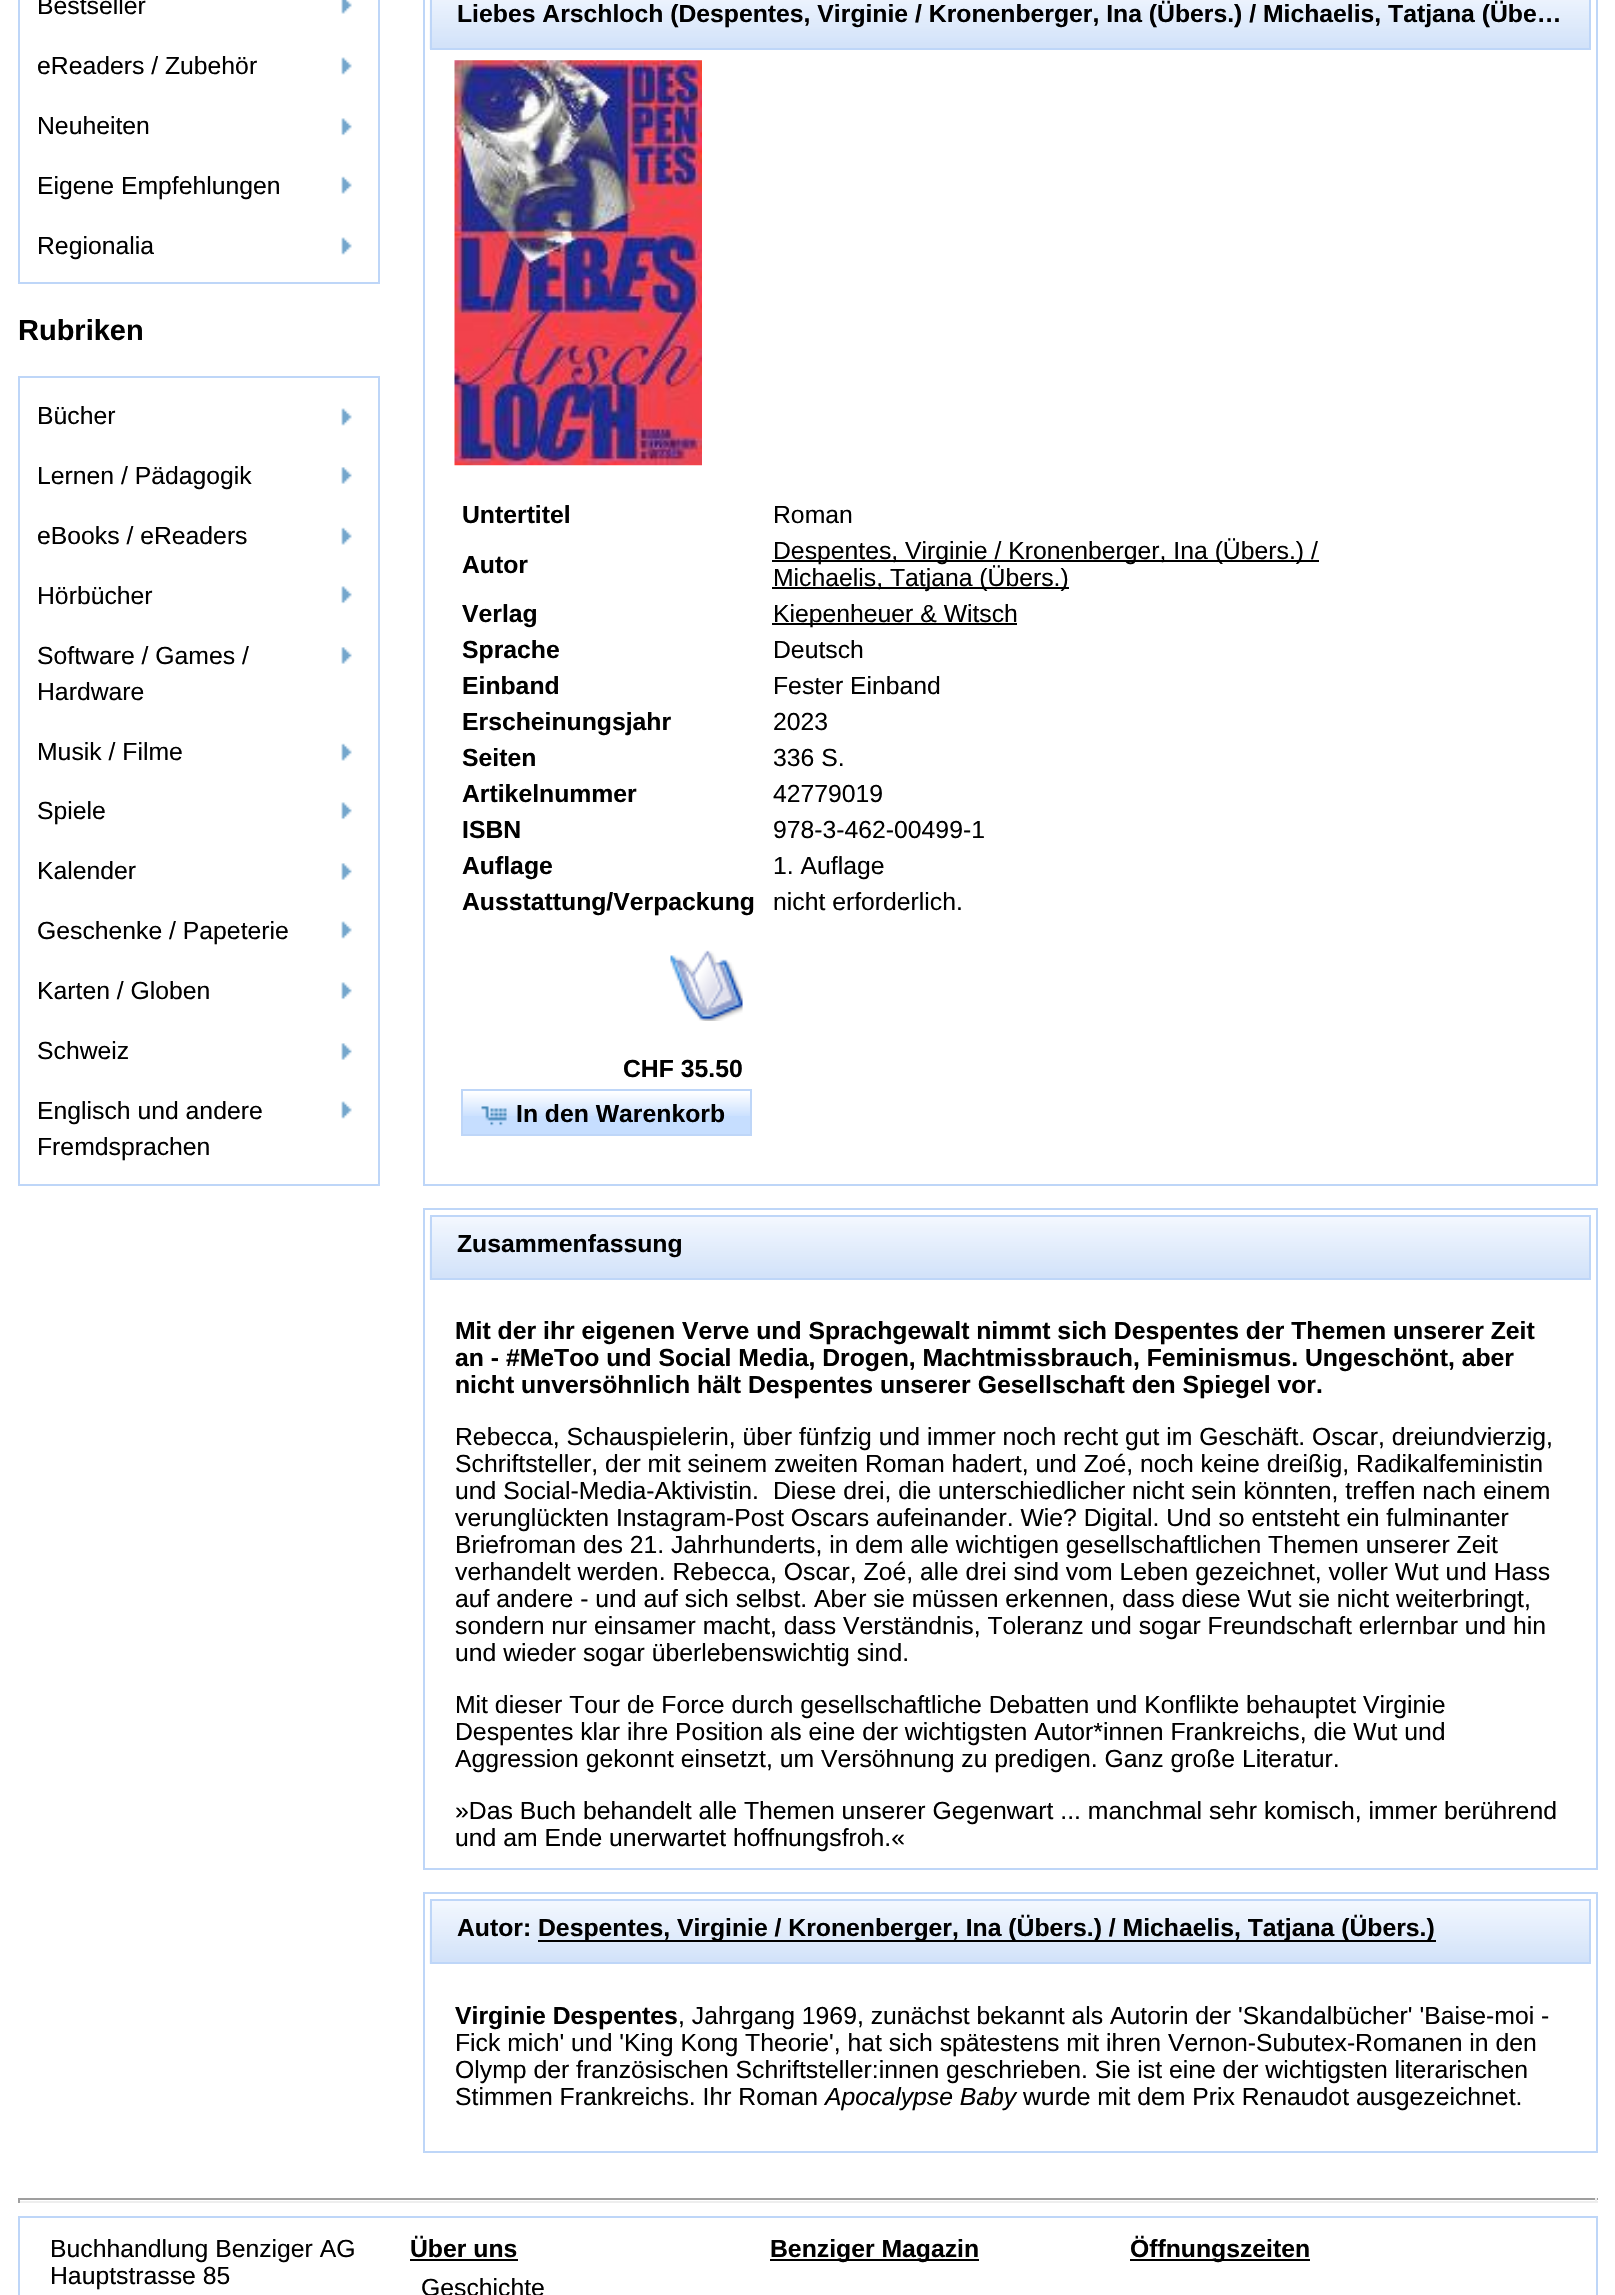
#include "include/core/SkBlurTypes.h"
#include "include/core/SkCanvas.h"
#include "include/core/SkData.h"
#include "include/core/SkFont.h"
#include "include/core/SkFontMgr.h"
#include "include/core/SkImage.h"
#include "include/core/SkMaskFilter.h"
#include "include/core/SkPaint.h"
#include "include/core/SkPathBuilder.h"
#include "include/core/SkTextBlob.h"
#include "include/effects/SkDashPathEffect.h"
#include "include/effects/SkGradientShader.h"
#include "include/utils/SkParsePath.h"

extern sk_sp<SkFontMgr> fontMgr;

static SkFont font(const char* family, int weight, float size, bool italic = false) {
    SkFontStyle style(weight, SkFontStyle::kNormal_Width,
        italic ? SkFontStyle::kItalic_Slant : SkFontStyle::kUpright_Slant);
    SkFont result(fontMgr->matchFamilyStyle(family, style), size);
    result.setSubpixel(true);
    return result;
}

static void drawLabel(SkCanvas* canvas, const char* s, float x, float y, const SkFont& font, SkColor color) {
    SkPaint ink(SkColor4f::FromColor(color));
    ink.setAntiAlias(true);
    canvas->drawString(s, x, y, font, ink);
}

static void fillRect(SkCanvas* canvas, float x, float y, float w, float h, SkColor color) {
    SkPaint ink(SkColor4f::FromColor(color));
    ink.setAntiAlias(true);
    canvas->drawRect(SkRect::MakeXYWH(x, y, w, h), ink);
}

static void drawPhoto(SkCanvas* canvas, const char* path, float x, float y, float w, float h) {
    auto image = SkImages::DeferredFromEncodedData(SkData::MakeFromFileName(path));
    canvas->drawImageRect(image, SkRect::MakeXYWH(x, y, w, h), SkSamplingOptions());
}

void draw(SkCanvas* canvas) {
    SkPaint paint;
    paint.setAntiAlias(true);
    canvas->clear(0xFFFFFFFF);
    paint.setStroke(true);
    paint.setStrokeWidth(2);
    paint.setColor(0xFFBED6F8);
    canvas->drawRect(SkRect::MakeXYWH(19, -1, 360, 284), paint);
    SkFont font1 = font("Liberation Sans", 400, 24.75f);
    drawLabel(canvas, "Bestseller", 37, 14, font1, 0xFF000000);
    drawPhoto(canvas, "assets/img1.png", 341, 0, 11, 14);
    drawLabel(canvas, "eReaders / Zubehör", 37, 74, font1, 0xFF000000);
    drawPhoto(canvas, "assets/img2.png", 341, 57, 11, 18);
    drawLabel(canvas, "Neuheiten", 37, 134, font1, 0xFF000000);
    drawPhoto(canvas, "assets/img3.png", 341, 118, 11, 18);
    drawLabel(canvas, "Eigene Empfehlungen", 37, 194, font1, 0xFF000000);
    drawPhoto(canvas, "assets/img4.png", 341, 176, 11, 18);
    drawLabel(canvas, "Regionalia", 37, 254, font1, 0xFF000000);
    drawPhoto(canvas, "assets/img5.png", 341, 237, 11, 18);
    SkFont font2 = font("Liberation Sans", 700, 29);
    drawLabel(canvas, "Rubriken", 18, 340, font2, 0xFF000000);
    canvas->drawRect(SkRect::MakeXYWH(19, 377, 360, 808), paint);
    drawLabel(canvas, "Bücher", 37, 424, font1, 0xFF000000);
    drawPhoto(canvas, "assets/img2.png", 341, 408, 11, 18);
    drawLabel(canvas, "Lernen / Pädagogik", 37, 484, font1, 0xFF000000);
    drawPhoto(canvas, "assets/img6.png", 341, 467, 11, 17);
    drawLabel(canvas, "eBooks / eReaders", 37, 544, font1, 0xFF000000);
    drawPhoto(canvas, "assets/img4.png", 341, 527, 11, 18);
    drawLabel(canvas, "Hörbücher", 37, 604, font1, 0xFF000000);
    drawPhoto(canvas, "assets/img3.png", 341, 586, 11, 18);
    drawLabel(canvas, "Software / Games /", 37, 664, font1, 0xFF000000);
    drawLabel(canvas, "Hardware", 37, 700, font1, 0xFF000000);
    drawPhoto(canvas, "assets/img6.png", 341, 647, 11, 17);
    drawLabel(canvas, "Musik / Filme", 37, 760, font1, 0xFF000000);
    drawPhoto(canvas, "assets/img4.png", 341, 743, 11, 18);
    drawLabel(canvas, "Spiele", 37, 819, font1, 0xFF000000);
    drawPhoto(canvas, "assets/img3.png", 341, 802, 11, 18);
    drawLabel(canvas, "Kalender", 37, 879, font1, 0xFF000000);
    drawPhoto(canvas, "assets/img6.png", 341, 863, 11, 17);
    drawLabel(canvas, "Geschenke / Papeterie", 37, 939, font1, 0xFF000000);
    drawPhoto(canvas, "assets/img2.png", 341, 921, 11, 18);
    drawLabel(canvas, "Karten / Globen", 37, 999, font1, 0xFF000000);
    drawPhoto(canvas, "assets/img3.png", 341, 982, 11, 18);
    drawLabel(canvas, "Schweiz", 37, 1059, font1, 0xFF000000);
    drawPhoto(canvas, "assets/img6.png", 341, 1043, 11, 17);
    drawLabel(canvas, "Englisch und andere", 37, 1119, font1, 0xFF000000);
    drawLabel(canvas, "Fremdsprachen", 37, 1155, font1, 0xFF000000);
    drawPhoto(canvas, "assets/img2.png", 341, 1101, 11, 18);
    canvas->drawRect(SkRect::MakeXYWH(424, -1, 1173, 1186), paint);
    drawPhoto(canvas, "assets/img7.png", 429, 0, 1160, 49);
    canvas->drawRect(SkRect::MakeXYWH(431, -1, 1159, 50), paint);
    SkFont font3 = font("Liberation Sans", 700, 24.75f);
    drawLabel(canvas, "Liebes Arschloch (Despentes, Virginie / Kronenberger, Ina (Übers.) / Michaelis, Tatjana (Übe…", 457, 22, font3, 0xFF000000);
    drawPhoto(canvas, "assets/img8.png", 454, 60, 248, 406);
    drawLabel(canvas, "Untertitel", 462, 523, font3, 0xFF000000);
    drawLabel(canvas, "Roman", 773, 523, font1, 0xFF000000);
    drawLabel(canvas, "Autor", 462, 573, font3, 0xFF000000);
    fillRect(canvas, 772, 560, 547, 2, 0xFF000000);
    drawLabel(canvas, "Despentes, Virginie / Kronenberger, Ina (Übers.) /", 773, 559, font1, 0xFF000000);
    fillRect(canvas, 772, 587, 297, 2, 0xFF000000);
    drawLabel(canvas, "Michaelis, Tatjana (Übers.)", 773, 586, font1, 0xFF000000);
    drawLabel(canvas, "Verlag", 462, 622, font3, 0xFF000000);
    fillRect(canvas, 772, 623, 245, 2, 0xFF000000);
    drawLabel(canvas, "Kiepenheuer & Witsch", 773, 622, font1, 0xFF000000);
    drawLabel(canvas, "Sprache", 462, 658, font3, 0xFF000000);
    drawLabel(canvas, "Deutsch", 773, 658, font1, 0xFF000000);
    drawLabel(canvas, "Einband", 462, 694, font3, 0xFF000000);
    drawLabel(canvas, "Fester Einband", 773, 694, font1, 0xFF000000);
    drawLabel(canvas, "Erscheinungsjahr", 462, 730, font3, 0xFF000000);
    drawLabel(canvas, "2023", 773, 730, font1, 0xFF000000);
    drawLabel(canvas, "Seiten", 462, 766, font3, 0xFF000000);
    drawLabel(canvas, "336 S.", 773, 766, font1, 0xFF000000);
    drawLabel(canvas, "Artikelnummer", 462, 802, font3, 0xFF000000);
    drawLabel(canvas, "42779019", 773, 802, font1, 0xFF000000);
    drawLabel(canvas, "ISBN", 462, 838, font3, 0xFF000000);
    drawLabel(canvas, "978-3-462-00499-1", 773, 838, font1, 0xFF000000);
    drawLabel(canvas, "Auflage", 462, 874, font3, 0xFF000000);
    drawLabel(canvas, "1. Auflage", 773, 874, font1, 0xFF000000);
    drawLabel(canvas, "Ausstattung/Verpackung", 462, 910, font3, 0xFF000000);
    drawLabel(canvas, "nicht erforderlich.", 773, 910, font1, 0xFF000000);
    drawPhoto(canvas, "assets/img9.png", 670, 950, 73, 71);
    drawLabel(canvas, "CHF 35.50", 623, 1077, font3, 0xFF000000);
    fillRect(canvas, 463, 1116, 287, 18, 0xFFC6DEFF);
    drawPhoto(canvas, "assets/img10.png", 463, 1091, 287, 25);
    canvas->drawRect(SkRect::MakeXYWH(462, 1090, 289, 45), paint);
    drawPhoto(canvas, "assets/img11.png", 481, 1106, 26, 20);
    drawLabel(canvas, "In den Warenkorb", 516, 1122, font3, 0xFF000000);
    canvas->drawRect(SkRect::MakeXYWH(424, 1209, 1173, 660), paint);
    drawPhoto(canvas, "assets/img12.png", 429, 1216, 1160, 64);
    canvas->drawRect(SkRect::MakeXYWH(431, 1216, 1159, 63), paint);
    drawLabel(canvas, "Zusammenfassung", 457, 1252, font3, 0xFF000000);
    drawLabel(canvas, "Mit der ihr eigenen Verve und Sprachgewalt nimmt sich Despentes der Themen unserer Zeit", 455, 1339, font3, 0xFF000000);
    drawLabel(canvas, "an - #MeToo und Social Media, Drogen, Machtmissbrauch, Feminismus. Ungeschönt, aber", 455, 1366, font3, 0xFF000000);
    drawLabel(canvas, "nicht unversöhnlich hält Despentes unserer Gesellschaft den Spiegel vor.", 455, 1393, font3, 0xFF000000);
    drawLabel(canvas, "Rebecca, Schauspielerin, über fünfzig und immer noch recht gut im Geschäft. Oscar, dreiundvierzig,", 455, 1445, font1, 0xFF000000);
    drawLabel(canvas, "Schriftsteller, der mit seinem zweiten Roman hadert, und Zoé, noch keine dreißig, Radikalfeministin", 455, 1472, font1, 0xFF000000);
    drawLabel(canvas, "und Social-Media-Aktivistin.", 455, 1499, font1, 0xFF000000);
    drawLabel(canvas, "Diese drei, die unterschiedlicher nicht sein könnten, treffen nach einem", 773, 1499, font1, 0xFF000000);
    drawLabel(canvas, "verunglückten Instagram-Post Oscars aufeinander. Wie? Digital. Und so entsteht ein fulminanter", 455, 1526, font1, 0xFF000000);
    drawLabel(canvas, "Briefroman des 21. Jahrhunderts, in dem alle wichtigen gesellschaftlichen Themen unserer Zeit", 455, 1553, font1, 0xFF000000);
    drawLabel(canvas, "verhandelt werden. Rebecca, Oscar, Zoé, alle drei sind vom Leben gezeichnet, voller Wut und Hass", 455, 1580, font1, 0xFF000000);
    drawLabel(canvas, "auf andere - und auf sich selbst. Aber sie müssen erkennen, dass diese Wut sie nicht weiterbringt,", 455, 1607, font1, 0xFF000000);
    drawLabel(canvas, "sondern nur einsamer macht, dass Verständnis, Toleranz und sogar Freundschaft erlernbar und hin", 455, 1634, font1, 0xFF000000);
    drawLabel(canvas, "und wieder sogar überlebenswichtig sind.", 455, 1661, font1, 0xFF000000);
    drawLabel(canvas, "Mit dieser Tour de Force durch gesellschaftliche Debatten und Konflikte behauptet Virginie", 455, 1713, font1, 0xFF000000);
    drawLabel(canvas, "Despentes klar ihre Position als eine der wichtigsten Autor*innen Frankreichs, die Wut und", 455, 1740, font1, 0xFF000000);
    drawLabel(canvas, "Aggression gekonnt einsetzt, um Versöhnung zu predigen. Ganz große Literatur.", 455, 1767, font1, 0xFF000000);
    drawLabel(canvas, "»Das Buch behandelt alle Themen unserer Gegenwart ... manchmal sehr komisch, immer berührend", 455, 1819, font1, 0xFF000000);
    drawLabel(canvas, "und am Ende unerwartet hoffnungsfroh.«", 455, 1846, font1, 0xFF000000);
    canvas->drawRect(SkRect::MakeXYWH(424, 1893, 1173, 259), paint);
    drawPhoto(canvas, "assets/img12.png", 429, 1900, 1160, 64);
    canvas->drawRect(SkRect::MakeXYWH(431, 1900, 1159, 63), paint);
    drawLabel(canvas, "Autor:", 457, 1936, font3, 0xFF000000);
    fillRect(canvas, 538, 1940, 898, 2, 0xFF000000);
    drawLabel(canvas, "Despentes, Virginie / Kronenberger, Ina (Übers.) / Michaelis, Tatjana (Übers.)", 538, 1936, font3, 0xFF000000);
    drawLabel(canvas, "Virginie Despentes", 455, 2024, font3, 0xFF000000);
    drawLabel(canvas, ", Jahrgang 1969, zunächst bekannt als Autorin der 'Skandalbücher' 'Baise-moi -", 678, 2024, font1, 0xFF000000);
    drawLabel(canvas, "Fick mich' und 'King Kong Theorie', hat sich spätestens mit ihren Vernon-Subutex-Romanen in den", 455, 2051, font1, 0xFF000000);
    drawLabel(canvas, "Olymp der französischen Schriftsteller:innen geschrieben. Sie ist eine der wichtigsten literarischen", 455, 2078, font1, 0xFF000000);
    drawLabel(canvas, "Stimmen Frankreichs. Ihr Roman", 455, 2105, font1, 0xFF000000);
    SkFont font4 = font("Liberation Sans", 400, 24.75f, true);
    drawLabel(canvas, "Apocalypse Baby", 825, 2105, font4, 0xFF000000);
    drawLabel(canvas, "wurde mit dem Prix Renaudot ausgezeichnet.", 1023, 2105, font1, 0xFF000000);
    fillRect(canvas, 18, 2198, 1580, 2, 0xFF9F9F9F);
    fillRect(canvas, 1595, 2198, 2, 5, 0xFFEEEEEE);
    fillRect(canvas, 18, 2201, 1580, 2, 0xFFEEEEEE);
    fillRect(canvas, 18, 2198, 2, 5, 0xFF9F9F9F);
    canvas->drawRect(SkRect::MakeXYWH(19, 2217, 1578, 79), paint);
    drawLabel(canvas, "Buchhandlung Benziger AG", 50, 2257, font1, 0xFF000000);
    drawLabel(canvas, "Hauptstrasse 85", 50, 2284, font1, 0xFF000000);
    drawLabel(canvas, "Über uns", 410, 2257, font3, 0xFF000000);
    fillRect(canvas, 410, 2259, 108, 2, 0xFF000000);
    drawLabel(canvas, "Geschichte", 421, 2296, font1, 0xFF000000);
    fillRect(canvas, 770, 2259, 209, 2, 0xFF000000);
    drawLabel(canvas, "Benziger Magazin", 770, 2257, font3, 0xFF000000);
    fillRect(canvas, 1130, 2259, 180, 2, 0xFF000000);
    drawLabel(canvas, "Öffnungszeiten", 1130, 2257, font3, 0xFF000000);
}
